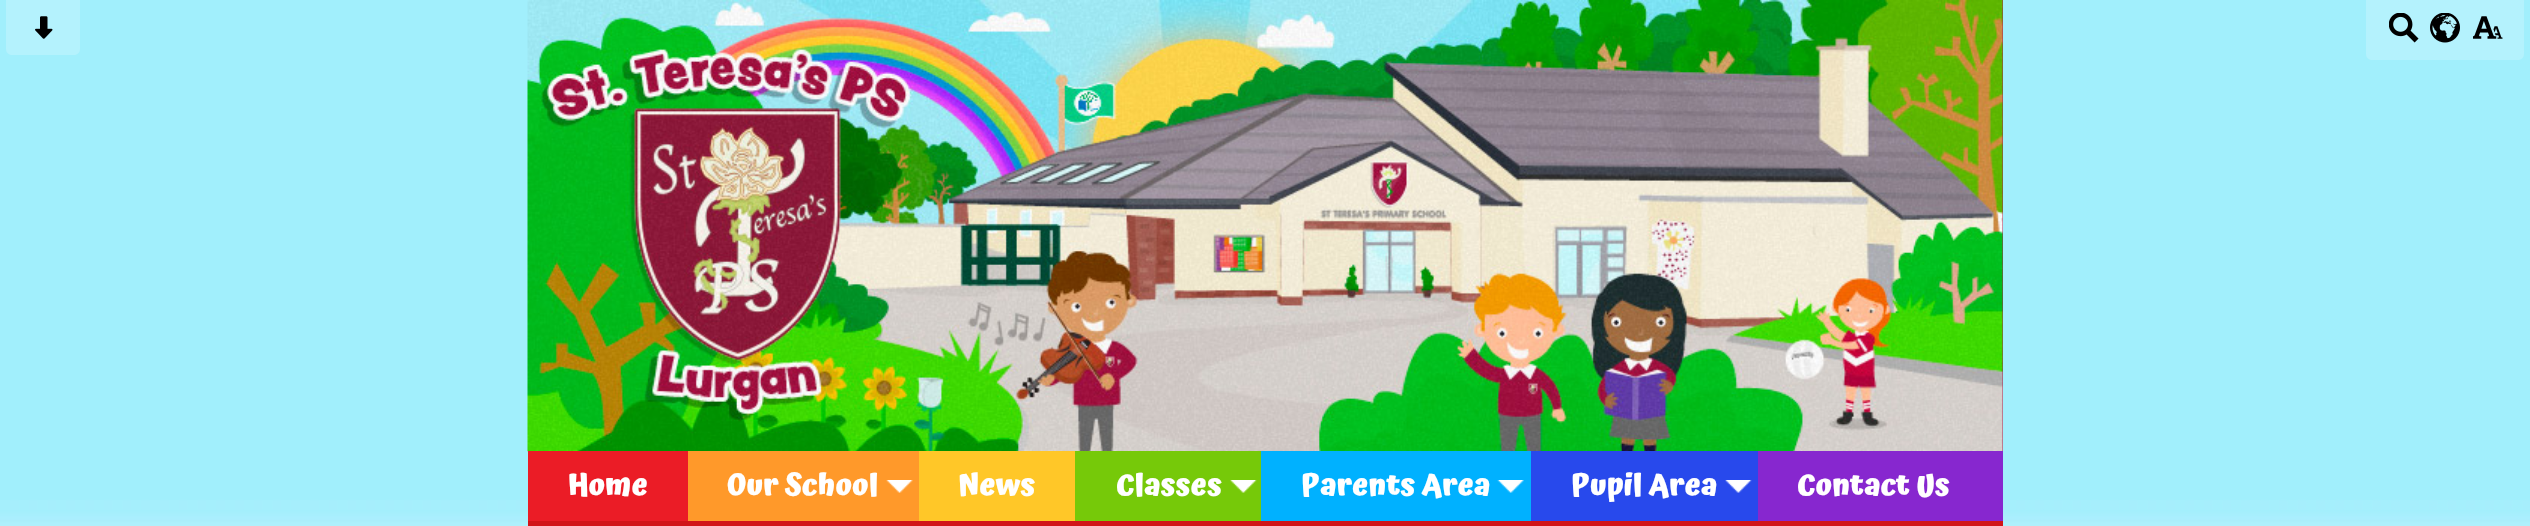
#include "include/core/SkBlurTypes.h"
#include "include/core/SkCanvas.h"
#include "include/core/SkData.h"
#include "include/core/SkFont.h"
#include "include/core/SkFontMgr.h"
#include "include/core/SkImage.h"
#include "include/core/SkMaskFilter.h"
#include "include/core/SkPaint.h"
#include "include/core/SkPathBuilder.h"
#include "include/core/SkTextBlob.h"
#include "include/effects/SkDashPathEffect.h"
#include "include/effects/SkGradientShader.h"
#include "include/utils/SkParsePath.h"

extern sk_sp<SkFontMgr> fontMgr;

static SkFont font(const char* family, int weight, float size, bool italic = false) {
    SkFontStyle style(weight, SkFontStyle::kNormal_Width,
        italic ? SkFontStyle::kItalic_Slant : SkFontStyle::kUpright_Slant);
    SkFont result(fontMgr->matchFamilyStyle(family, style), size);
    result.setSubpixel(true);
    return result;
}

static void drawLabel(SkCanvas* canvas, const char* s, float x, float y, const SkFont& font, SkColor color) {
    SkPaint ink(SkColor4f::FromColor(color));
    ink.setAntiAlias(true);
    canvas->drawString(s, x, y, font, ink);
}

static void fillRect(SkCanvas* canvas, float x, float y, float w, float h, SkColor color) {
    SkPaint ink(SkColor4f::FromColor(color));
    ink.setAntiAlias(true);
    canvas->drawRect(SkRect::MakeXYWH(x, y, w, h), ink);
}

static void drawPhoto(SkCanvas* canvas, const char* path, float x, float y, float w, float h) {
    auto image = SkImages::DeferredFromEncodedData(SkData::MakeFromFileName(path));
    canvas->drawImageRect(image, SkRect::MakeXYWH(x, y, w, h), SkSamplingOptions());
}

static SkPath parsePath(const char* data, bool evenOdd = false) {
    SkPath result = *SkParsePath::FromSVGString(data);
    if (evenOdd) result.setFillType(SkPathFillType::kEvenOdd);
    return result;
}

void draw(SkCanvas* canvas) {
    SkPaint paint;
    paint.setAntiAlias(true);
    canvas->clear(0xFFFFFFFF);
    drawPhoto(canvas, "assets/img1.png", 0, 0, 2530, 526);
    paint.setColor(0xFFB4F2FD);
    canvas->drawPath(parsePath("M6 0H80V49C80 52.5 77.5 55 74 55H12C8.5 55 6 52.5 6 49Z"), paint);
    drawPhoto(canvas, "assets/img2.png", 35, 16, 18, 23);
    canvas->drawPath(parsePath("M2366 0H2524V54C2524 57.5 2521.5 60 2518 60H2372C2368.5 60 2366 57.5 2366 54Z"), paint);
    drawPhoto(canvas, "assets/img3.png", 2389, 13, 30, 30);
    drawPhoto(canvas, "assets/img4.png", 2430, 13, 30, 30);
    drawPhoto(canvas, "assets/img5.png", 2473, 16, 30, 23);
    fillRect(canvas, 2002, 0, 1, 451, 0xFFA72551);
    drawPhoto(canvas, "assets/img6.png", 527, 0, 1476, 452);
    fillRect(canvas, 1758, 451, 245, 70, 0xFF8727CF);
    fillRect(canvas, 528, 451, 160, 70, 0xFFEB1C26);
    SkFont font1 = font("Atma", 700, 30);
    drawLabel(canvas, "Home", 568, 495, font1, 0xFFFFFFFF);
    fillRect(canvas, 688, 451, 231, 70, 0xFFFF992A);
    drawPhoto(canvas, "assets/img7.png", 886, 480, 27, 13);
    drawLabel(canvas, "Our School", 727, 495, font1, 0xFFFFFFFF);
    fillRect(canvas, 919, 451, 156, 70, 0xFFFFC728);
    drawLabel(canvas, "News", 958, 495, font1, 0xFFFFFFFF);
    fillRect(canvas, 1075, 451, 186, 70, 0xFF76C909);
    drawPhoto(canvas, "assets/img8.png", 1230, 480, 27, 13);
    drawLabel(canvas, "Classes", 1116, 495, font1, 0xFFFFFFFF);
    fillRect(canvas, 1261, 451, 270, 70, 0xFF00B1FF);
    drawPhoto(canvas, "assets/img9.png", 1497, 480, 27, 13);
    drawLabel(canvas, "Parents Area", 1301, 495, font1, 0xFFFFFFFF);
    fillRect(canvas, 1531, 451, 227, 70, 0xFF2849EC);
    drawPhoto(canvas, "assets/img10.png", 1725, 480, 27, 13);
    drawLabel(canvas, "Pupil Area", 1571, 495, font1, 0xFFFFFFFF);
    drawLabel(canvas, "Contact Us", 1797, 495, font1, 0xFFFFFFFF);
    fillRect(canvas, 528, 521, 1475, 5, 0xFFD11418);
}
